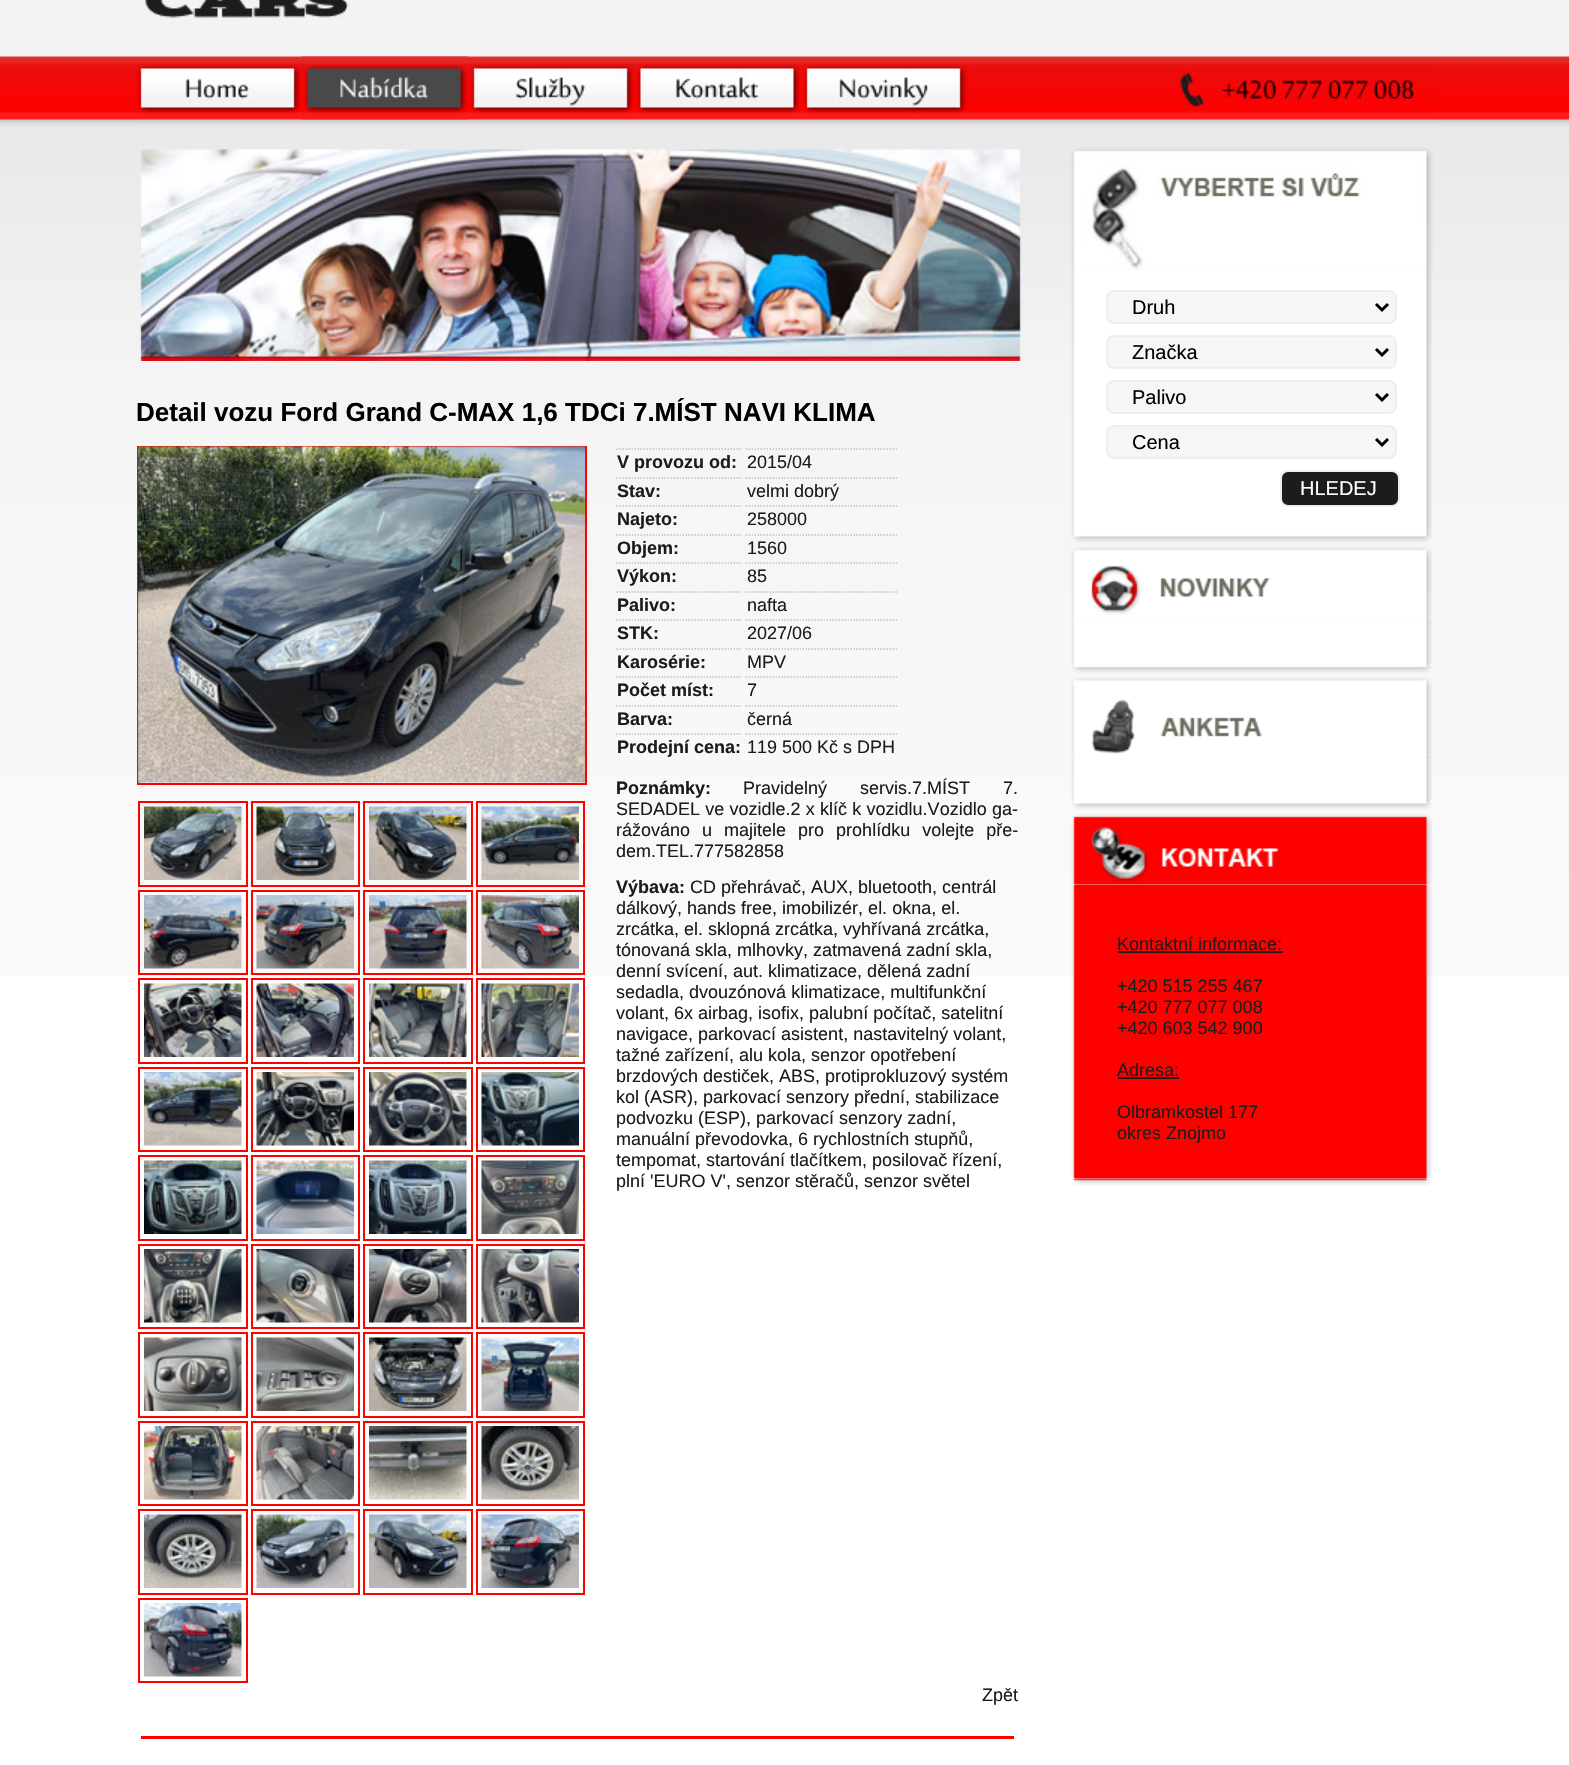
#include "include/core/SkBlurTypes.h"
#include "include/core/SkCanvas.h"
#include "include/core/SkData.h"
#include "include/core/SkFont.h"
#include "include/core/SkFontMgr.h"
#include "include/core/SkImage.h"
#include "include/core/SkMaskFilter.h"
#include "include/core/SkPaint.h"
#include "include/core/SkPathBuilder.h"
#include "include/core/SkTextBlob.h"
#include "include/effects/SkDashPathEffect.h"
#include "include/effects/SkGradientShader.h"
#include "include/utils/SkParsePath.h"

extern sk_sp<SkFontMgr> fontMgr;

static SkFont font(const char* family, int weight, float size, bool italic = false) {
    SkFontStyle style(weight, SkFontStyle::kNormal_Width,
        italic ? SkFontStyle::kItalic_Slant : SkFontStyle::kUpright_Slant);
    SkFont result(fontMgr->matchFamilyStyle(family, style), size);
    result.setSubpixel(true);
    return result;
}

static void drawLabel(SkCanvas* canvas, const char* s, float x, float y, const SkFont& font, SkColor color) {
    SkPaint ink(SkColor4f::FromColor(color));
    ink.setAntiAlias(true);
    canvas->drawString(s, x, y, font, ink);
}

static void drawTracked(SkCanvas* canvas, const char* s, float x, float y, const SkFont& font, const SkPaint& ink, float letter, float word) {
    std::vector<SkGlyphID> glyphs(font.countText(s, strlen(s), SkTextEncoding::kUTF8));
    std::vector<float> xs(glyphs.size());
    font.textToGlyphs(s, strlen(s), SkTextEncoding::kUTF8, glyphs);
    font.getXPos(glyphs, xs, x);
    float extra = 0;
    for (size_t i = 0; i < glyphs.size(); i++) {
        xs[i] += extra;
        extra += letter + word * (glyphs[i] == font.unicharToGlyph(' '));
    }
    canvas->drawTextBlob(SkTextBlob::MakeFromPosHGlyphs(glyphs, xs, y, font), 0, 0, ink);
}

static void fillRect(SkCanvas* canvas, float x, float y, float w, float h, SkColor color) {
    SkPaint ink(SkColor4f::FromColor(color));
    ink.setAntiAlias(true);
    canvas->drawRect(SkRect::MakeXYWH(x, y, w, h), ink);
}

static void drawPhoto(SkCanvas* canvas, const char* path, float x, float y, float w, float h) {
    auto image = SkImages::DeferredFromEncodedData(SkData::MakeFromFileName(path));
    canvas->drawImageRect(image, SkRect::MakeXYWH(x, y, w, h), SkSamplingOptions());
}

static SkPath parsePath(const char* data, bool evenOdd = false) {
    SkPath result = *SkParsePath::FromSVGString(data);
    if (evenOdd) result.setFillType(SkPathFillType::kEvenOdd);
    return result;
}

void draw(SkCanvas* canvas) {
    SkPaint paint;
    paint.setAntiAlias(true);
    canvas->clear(0xFFFFFFFF);
    drawPhoto(canvas, "assets/img1.png", 0, 0, 1569, 976);
    drawPhoto(canvas, "assets/img2.png", 136, 0, 1297, 361);
    drawPhoto(canvas, "assets/img3.png", 301, 56, 167, 64);
    SkFont font1 = font("Liberation Sans", 700, 26);
    drawLabel(canvas, "Detail vozu Ford Grand C-MAX 1,6 TDCi 7.MÍST NAVI KLIMA", 136, 421, font1, 0xFF000000);
    paint.setStroke(true);
    paint.setStrokeWidth(2);
    paint.setColor(0xFFFF0000);
    canvas->drawRect(SkRect::MakeXYWH(138, 447, 448, 337), paint);
    drawPhoto(canvas, "assets/img4.png", 138, 446, 447, 337);
    canvas->drawRect(SkRect::MakeXYWH(139, 802, 108, 84), paint);
    canvas->drawRect(SkRect::MakeXYWH(252, 802, 107, 84), paint);
    canvas->drawRect(SkRect::MakeXYWH(364, 802, 108, 84), paint);
    canvas->drawRect(SkRect::MakeXYWH(477, 802, 107, 84), paint);
    drawPhoto(canvas, "assets/img5.png", 144, 806, 98, 74);
    drawPhoto(canvas, "assets/img6.png", 256, 806, 98, 74);
    drawPhoto(canvas, "assets/img7.png", 369, 806, 98, 74);
    drawPhoto(canvas, "assets/img8.png", 481, 806, 98, 74);
    canvas->drawRect(SkRect::MakeXYWH(139, 891, 108, 83), paint);
    canvas->drawRect(SkRect::MakeXYWH(252, 891, 107, 83), paint);
    canvas->drawRect(SkRect::MakeXYWH(364, 891, 108, 83), paint);
    canvas->drawRect(SkRect::MakeXYWH(477, 891, 107, 83), paint);
    drawPhoto(canvas, "assets/img9.png", 144, 895, 98, 74);
    drawPhoto(canvas, "assets/img10.png", 256, 895, 98, 74);
    drawPhoto(canvas, "assets/img11.png", 369, 895, 98, 74);
    drawPhoto(canvas, "assets/img12.png", 481, 895, 98, 74);
    canvas->drawRect(SkRect::MakeXYWH(139, 979, 108, 84), paint);
    canvas->drawRect(SkRect::MakeXYWH(252, 979, 107, 84), paint);
    canvas->drawRect(SkRect::MakeXYWH(364, 979, 108, 84), paint);
    canvas->drawRect(SkRect::MakeXYWH(477, 979, 107, 84), paint);
    drawPhoto(canvas, "assets/img13.png", 144, 983, 98, 74);
    drawPhoto(canvas, "assets/img14.png", 256, 983, 98, 74);
    drawPhoto(canvas, "assets/img15.png", 369, 983, 98, 74);
    drawPhoto(canvas, "assets/img16.png", 481, 983, 98, 74);
    canvas->drawRect(SkRect::MakeXYWH(139, 1068, 108, 83), paint);
    canvas->drawRect(SkRect::MakeXYWH(252, 1068, 107, 83), paint);
    canvas->drawRect(SkRect::MakeXYWH(364, 1068, 108, 83), paint);
    canvas->drawRect(SkRect::MakeXYWH(477, 1068, 107, 83), paint);
    drawPhoto(canvas, "assets/img17.png", 144, 1072, 98, 74);
    drawPhoto(canvas, "assets/img18.png", 256, 1072, 98, 74);
    drawPhoto(canvas, "assets/img19.png", 369, 1072, 98, 74);
    drawPhoto(canvas, "assets/img20.png", 481, 1072, 98, 74);
    canvas->drawRect(SkRect::MakeXYWH(139, 1156, 108, 84), paint);
    canvas->drawRect(SkRect::MakeXYWH(252, 1156, 107, 84), paint);
    canvas->drawRect(SkRect::MakeXYWH(364, 1156, 108, 84), paint);
    canvas->drawRect(SkRect::MakeXYWH(477, 1156, 107, 84), paint);
    drawPhoto(canvas, "assets/img21.png", 144, 1160, 98, 74);
    drawPhoto(canvas, "assets/img22.png", 256, 1160, 98, 74);
    drawPhoto(canvas, "assets/img23.png", 369, 1160, 98, 74);
    drawPhoto(canvas, "assets/img24.png", 481, 1160, 98, 74);
    canvas->drawRect(SkRect::MakeXYWH(139, 1245, 108, 83), paint);
    canvas->drawRect(SkRect::MakeXYWH(252, 1245, 107, 83), paint);
    canvas->drawRect(SkRect::MakeXYWH(364, 1245, 108, 83), paint);
    canvas->drawRect(SkRect::MakeXYWH(477, 1245, 107, 83), paint);
    drawPhoto(canvas, "assets/img25.png", 144, 1249, 98, 74);
    drawPhoto(canvas, "assets/img26.png", 256, 1249, 98, 74);
    drawPhoto(canvas, "assets/img27.png", 369, 1249, 98, 74);
    drawPhoto(canvas, "assets/img28.png", 481, 1249, 98, 74);
    canvas->drawRect(SkRect::MakeXYWH(139, 1333, 108, 84), paint);
    canvas->drawRect(SkRect::MakeXYWH(252, 1333, 107, 84), paint);
    canvas->drawRect(SkRect::MakeXYWH(364, 1333, 108, 84), paint);
    canvas->drawRect(SkRect::MakeXYWH(477, 1333, 107, 84), paint);
    drawPhoto(canvas, "assets/img29.png", 144, 1337, 98, 74);
    drawPhoto(canvas, "assets/img30.png", 256, 1337, 98, 74);
    drawPhoto(canvas, "assets/img31.png", 369, 1337, 98, 74);
    drawPhoto(canvas, "assets/img32.png", 481, 1337, 98, 74);
    canvas->drawRect(SkRect::MakeXYWH(139, 1422, 108, 83), paint);
    canvas->drawRect(SkRect::MakeXYWH(252, 1422, 107, 83), paint);
    canvas->drawRect(SkRect::MakeXYWH(364, 1422, 108, 83), paint);
    canvas->drawRect(SkRect::MakeXYWH(477, 1422, 107, 83), paint);
    drawPhoto(canvas, "assets/img33.png", 144, 1426, 98, 74);
    drawPhoto(canvas, "assets/img34.png", 256, 1426, 98, 74);
    drawPhoto(canvas, "assets/img35.png", 369, 1426, 98, 74);
    drawPhoto(canvas, "assets/img36.png", 481, 1426, 98, 74);
    canvas->drawRect(SkRect::MakeXYWH(139, 1510, 108, 84), paint);
    canvas->drawRect(SkRect::MakeXYWH(252, 1510, 107, 84), paint);
    canvas->drawRect(SkRect::MakeXYWH(364, 1510, 108, 84), paint);
    canvas->drawRect(SkRect::MakeXYWH(477, 1510, 107, 84), paint);
    drawPhoto(canvas, "assets/img37.png", 144, 1514, 98, 74);
    drawPhoto(canvas, "assets/img38.png", 256, 1514, 98, 74);
    drawPhoto(canvas, "assets/img39.png", 369, 1514, 98, 74);
    drawPhoto(canvas, "assets/img40.png", 481, 1514, 98, 74);
    canvas->drawRect(SkRect::MakeXYWH(139, 1599, 108, 83), paint);
    drawPhoto(canvas, "assets/img41.png", 144, 1603, 98, 74);
    paint.setStrokeWidth(1.5f);
    paint.setColor(0xFFC0C0C0);
    paint.setPathEffect(SkDashPathEffect::Make({{1.5f, 1.5f}}, 0));
    canvas->drawPath(parsePath("M616.5 449H742.5"), paint);
    paint.setPathEffect(nullptr);
    SkFont font2 = font("Liberation Sans", 700, 18);
    drawLabel(canvas, "V provozu od:", 617, 468, font2, 0xFF1C1C1C);
    paint.setPathEffect(SkDashPathEffect::Make({{1.5f, 1.5f}}, 0));
    canvas->drawPath(parsePath("M745.5 449H897"), paint);
    paint.setPathEffect(nullptr);
    SkFont font3 = font("Liberation Sans", 400, 18);
    drawLabel(canvas, "2015/04", 747, 468, font3, 0xFF1C1C1C);
    paint.setPathEffect(SkDashPathEffect::Make({{1.5f, 1.5f}}, 0));
    canvas->drawPath(parsePath("M616.5 478H742.5"), paint);
    paint.setPathEffect(nullptr);
    drawLabel(canvas, "Stav:", 617, 497, font2, 0xFF1C1C1C);
    paint.setPathEffect(SkDashPathEffect::Make({{1.5f, 1.5f}}, 0));
    canvas->drawPath(parsePath("M745.5 478H897"), paint);
    paint.setPathEffect(nullptr);
    drawLabel(canvas, "velmi dobrý", 747, 497, font3, 0xFF1C1C1C);
    paint.setPathEffect(SkDashPathEffect::Make({{1.5f, 1.5f}}, 0));
    canvas->drawPath(parsePath("M616.5 506H742.5"), paint);
    paint.setPathEffect(nullptr);
    drawLabel(canvas, "Najeto:", 617, 525, font2, 0xFF1C1C1C);
    paint.setPathEffect(SkDashPathEffect::Make({{1.5f, 1.5f}}, 0));
    canvas->drawPath(parsePath("M745.5 506H897"), paint);
    paint.setPathEffect(nullptr);
    drawLabel(canvas, "258000", 747, 525, font3, 0xFF1C1C1C);
    paint.setPathEffect(SkDashPathEffect::Make({{1.5f, 1.5f}}, 0));
    canvas->drawPath(parsePath("M616.5 535H742.5"), paint);
    paint.setPathEffect(nullptr);
    drawLabel(canvas, "Objem:", 617, 554, font2, 0xFF1C1C1C);
    paint.setPathEffect(SkDashPathEffect::Make({{1.5f, 1.5f}}, 0));
    canvas->drawPath(parsePath("M745.5 535H897"), paint);
    paint.setPathEffect(nullptr);
    drawLabel(canvas, "1560", 747, 554, font3, 0xFF1C1C1C);
    paint.setPathEffect(SkDashPathEffect::Make({{1.5f, 1.5f}}, 0));
    canvas->drawPath(parsePath("M616.5 563H742.5"), paint);
    paint.setPathEffect(nullptr);
    drawLabel(canvas, "Výkon:", 617, 582, font2, 0xFF1C1C1C);
    paint.setPathEffect(SkDashPathEffect::Make({{1.5f, 1.5f}}, 0));
    canvas->drawPath(parsePath("M745.5 563H897"), paint);
    paint.setPathEffect(nullptr);
    drawLabel(canvas, "85", 747, 582, font3, 0xFF1C1C1C);
    paint.setPathEffect(SkDashPathEffect::Make({{1.5f, 1.5f}}, 0));
    canvas->drawPath(parsePath("M616.5 592H742.5"), paint);
    paint.setPathEffect(nullptr);
    drawLabel(canvas, "Palivo:", 617, 611, font2, 0xFF1C1C1C);
    paint.setPathEffect(SkDashPathEffect::Make({{1.5f, 1.5f}}, 0));
    canvas->drawPath(parsePath("M745.5 592H897"), paint);
    paint.setPathEffect(nullptr);
    drawLabel(canvas, "nafta", 747, 611, font3, 0xFF1C1C1C);
    paint.setPathEffect(SkDashPathEffect::Make({{1.5f, 1.5f}}, 0));
    canvas->drawPath(parsePath("M616.5 620H742.5"), paint);
    paint.setPathEffect(nullptr);
    drawLabel(canvas, "STK:", 617, 639, font2, 0xFF1C1C1C);
    paint.setPathEffect(SkDashPathEffect::Make({{1.5f, 1.5f}}, 0));
    canvas->drawPath(parsePath("M745.5 620H897"), paint);
    paint.setPathEffect(nullptr);
    drawLabel(canvas, "2027/06", 747, 639, font3, 0xFF1C1C1C);
    paint.setPathEffect(SkDashPathEffect::Make({{1.5f, 1.5f}}, 0));
    canvas->drawPath(parsePath("M616.5 649H742.5"), paint);
    paint.setPathEffect(nullptr);
    drawLabel(canvas, "Karosérie:", 617, 668, font2, 0xFF1C1C1C);
    paint.setPathEffect(SkDashPathEffect::Make({{1.5f, 1.5f}}, 0));
    canvas->drawPath(parsePath("M745.5 649H897"), paint);
    paint.setPathEffect(nullptr);
    drawLabel(canvas, "MPV", 747, 668, font3, 0xFF1C1C1C);
    paint.setPathEffect(SkDashPathEffect::Make({{1.5f, 1.5f}}, 0));
    canvas->drawPath(parsePath("M616.5 677H742.5"), paint);
    paint.setPathEffect(nullptr);
    drawLabel(canvas, "Počet míst:", 617, 696, font2, 0xFF1C1C1C);
    paint.setPathEffect(SkDashPathEffect::Make({{1.5f, 1.5f}}, 0));
    canvas->drawPath(parsePath("M745.5 677H897"), paint);
    paint.setPathEffect(nullptr);
    drawLabel(canvas, "7", 747, 696, font3, 0xFF1C1C1C);
    paint.setPathEffect(SkDashPathEffect::Make({{1.5f, 1.5f}}, 0));
    canvas->drawPath(parsePath("M616.5 706H742.5"), paint);
    paint.setPathEffect(nullptr);
    drawLabel(canvas, "Barva:", 617, 725, font2, 0xFF1C1C1C);
    paint.setPathEffect(SkDashPathEffect::Make({{1.5f, 1.5f}}, 0));
    canvas->drawPath(parsePath("M745.5 706H897"), paint);
    paint.setPathEffect(nullptr);
    drawLabel(canvas, "černá", 747, 725, font3, 0xFF1C1C1C);
    paint.setPathEffect(SkDashPathEffect::Make({{1.5f, 1.5f}}, 0));
    canvas->drawPath(parsePath("M616.5 734H742.5"), paint);
    paint.setPathEffect(nullptr);
    drawLabel(canvas, "Prodejní cena:", 617, 753, font2, 0xFF1C1C1C);
    paint.setPathEffect(SkDashPathEffect::Make({{1.5f, 1.5f}}, 0));
    canvas->drawPath(parsePath("M745.5 734H897"), paint);
    paint.setPathEffect(nullptr);
    drawLabel(canvas, "119 500 Kč s DPH", 747, 753, font3, 0xFF1C1C1C);
    drawLabel(canvas, "Poznámky:", 616, 794, font2, 0xFF1C1C1C);
    paint.setStroke(false);
    paint.setColor(0xFF1C1C1C);
    drawTracked(canvas, "Pravidelný servis.7.MÍST 7.", 743, 794, font3, paint, 0, 28);
    drawTracked(canvas, "SEDADEL ve vozidle.2 x klíč k vozidlu.Vozidlo ga-", 616, 815, font3, paint, 0, 0.25f);
    drawTracked(canvas, "rážováno u majitele pro prohlídku volejte pře-", 616, 836, font3, paint, 0, 7);
    drawLabel(canvas, "dem.TEL.777582858", 616, 857, font3, 0xFF1C1C1C);
    drawLabel(canvas, "Výbava:", 616, 893, font2, 0xFF1C1C1C);
    drawLabel(canvas, "CD přehrávač, AUX, bluetooth, centrál", 690, 893, font3, 0xFF1C1C1C);
    drawLabel(canvas, "dálkový, hands free, imobilizér, el. okna, el.", 616, 914, font3, 0xFF1C1C1C);
    drawLabel(canvas, "zrcátka, el. sklopná zrcátka, vyhřívaná zrcátka,", 616, 935, font3, 0xFF1C1C1C);
    drawLabel(canvas, "tónovaná skla, mlhovky, zatmavená zadní skla,", 616, 956, font3, 0xFF1C1C1C);
    drawLabel(canvas, "denní svícení, aut. klimatizace, dělená zadní", 616, 977, font3, 0xFF1C1C1C);
    drawLabel(canvas, "sedadla, dvouzónová klimatizace, multifunkční", 616, 998, font3, 0xFF1C1C1C);
    drawLabel(canvas, "volant, 6x airbag, isofix, palubní počítač, satelitní", 616, 1019, font3, 0xFF1C1C1C);
    drawLabel(canvas, "navigace, parkovací asistent, nastavitelný volant,", 616, 1040, font3, 0xFF1C1C1C);
    drawLabel(canvas, "tažné zařízení, alu kola, senzor opotřebení", 616, 1061, font3, 0xFF1C1C1C);
    drawLabel(canvas, "brzdových destiček, ABS, protiprokluzový systém", 616, 1082, font3, 0xFF1C1C1C);
    drawLabel(canvas, "kol (ASR), parkovací senzory přední, stabilizace", 616, 1103, font3, 0xFF1C1C1C);
    drawLabel(canvas, "podvozku (ESP), parkovací senzory zadní,", 616, 1124, font3, 0xFF1C1C1C);
    drawLabel(canvas, "manuální převodovka, 6 rychlostních stupňů,", 616, 1145, font3, 0xFF1C1C1C);
    drawLabel(canvas, "tempomat, startování tlačítkem, posilovač řízení,", 616, 1166, font3, 0xFF1C1C1C);
    drawLabel(canvas, "plní 'EURO V', senzor stěračů, senzor světel", 616, 1187, font3, 0xFF1C1C1C);
    drawLabel(canvas, "Zpět", 982, 1701, font3, 0xFF1C1C1C);
    fillRect(canvas, 141, 1736, 873, 3, 0xFFFF0000);
    drawPhoto(canvas, "assets/img42.png", 1071, 271, 361, 264);
    paint.setColor(0xFFF6F6F6);
    canvas->drawRoundRect(SkRect::MakeXYWH(1107, 291, 289, 32), 7, 7, paint);
    paint.setStroke(true);
    paint.setStrokeWidth(2);
    paint.setColor(0xFFEEEEEE);
    canvas->drawRoundRect(SkRect::MakeXYWH(1107, 291, 289, 32), 7, 7, paint);
    paint.setStrokeWidth(3);
    paint.setColor(0xFF000000);
    canvas->drawPath(parsePath("M1376 304L1382 310L1388 304"), paint);
    SkFont font4 = font("Liberation Sans", 400, 20);
    drawLabel(canvas, "Druh", 1132, 314, font4, 0xFF000000);
    paint.setStroke(false);
    paint.setColor(0xFFF6F6F6);
    canvas->drawRoundRect(SkRect::MakeXYWH(1107, 336, 289, 32), 7, 7, paint);
    paint.setStroke(true);
    paint.setStrokeWidth(2);
    paint.setColor(0xFFEEEEEE);
    canvas->drawRoundRect(SkRect::MakeXYWH(1107, 336, 289, 32), 7, 7, paint);
    paint.setStrokeWidth(3);
    paint.setColor(0xFF000000);
    canvas->drawPath(parsePath("M1376 349L1382 355L1388 349"), paint);
    drawLabel(canvas, "Značka", 1132, 359, font4, 0xFF000000);
    paint.setStroke(false);
    paint.setColor(0xFFF6F6F6);
    canvas->drawRoundRect(SkRect::MakeXYWH(1107, 381, 289, 32), 7, 7, paint);
    paint.setStroke(true);
    paint.setStrokeWidth(2);
    paint.setColor(0xFFEEEEEE);
    canvas->drawRoundRect(SkRect::MakeXYWH(1107, 381, 289, 32), 7, 7, paint);
    paint.setStrokeWidth(3);
    paint.setColor(0xFF000000);
    canvas->drawPath(parsePath("M1376 394L1382 400L1388 394"), paint);
    drawLabel(canvas, "Palivo", 1132, 404, font4, 0xFF000000);
    paint.setStroke(false);
    paint.setColor(0xFFF6F6F6);
    canvas->drawRoundRect(SkRect::MakeXYWH(1107, 426, 289, 32), 7, 7, paint);
    paint.setStroke(true);
    paint.setStrokeWidth(2);
    paint.setColor(0xFFEEEEEE);
    canvas->drawRoundRect(SkRect::MakeXYWH(1107, 426, 289, 32), 7, 7, paint);
    paint.setStrokeWidth(3);
    paint.setColor(0xFF000000);
    canvas->drawPath(parsePath("M1376 439L1382 445L1388 439"), paint);
    canvas->save();
    canvas->clipRect(SkRect::MakeXYWH(1133, 429, 219, 26));
    drawLabel(canvas, "Cena", 1132, 449, font4, 0xFF000000);
    canvas->restore();
    paint.setStroke(false);
    paint.setColor(0xFF1C1C1C);
    canvas->drawRoundRect(SkRect::MakeXYWH(1281, 471, 118, 35), 7, 7, paint);
    paint.setStroke(true);
    paint.setStrokeWidth(2);
    paint.setColor(0xFFEEEEEE);
    canvas->drawRoundRect(SkRect::MakeXYWH(1281, 471, 118, 35), 7, 7, paint);
    drawLabel(canvas, "HLEDEJ", 1300, 495, font4, 0xFFFFFFFF);
    drawPhoto(canvas, "assets/img43.png", 1071, 535, 361, 83);
    drawPhoto(canvas, "assets/img44.png", 1071, 617, 361, 49);
    drawPhoto(canvas, "assets/img45.png", 1071, 665, 361, 89);
    drawPhoto(canvas, "assets/img46.png", 1071, 754, 361, 48);
    drawPhoto(canvas, "assets/img47.png", 1071, 802, 361, 83);
    drawPhoto(canvas, "assets/img48.png", 1071, 884, 361, 295);
    drawLabel(canvas, "Kontaktní informace:", 1117, 950, font3, 0xFF1C1C1C);
    fillRect(canvas, 1118, 951, 165, 2, 0xFF1C1C1C);
    drawLabel(canvas, "+420 515 255 467", 1117, 992, font3, 0xFF1C1C1C);
    drawLabel(canvas, "+420 777 077 008", 1117, 1013, font3, 0xFF1C1C1C);
    drawLabel(canvas, "+420 603 542 900", 1117, 1034, font3, 0xFF1C1C1C);
    drawLabel(canvas, "Adresa:", 1117, 1076, font3, 0xFF1C1C1C);
    fillRect(canvas, 1118, 1077, 61, 2, 0xFF1C1C1C);
    drawLabel(canvas, "Olbramkostel 177", 1117, 1118, font3, 0xFF1C1C1C);
    drawLabel(canvas, "okres Znojmo", 1117, 1139, font3, 0xFF1C1C1C);
    drawPhoto(canvas, "assets/img49.png", 1072, 1178, 360, 8);
}
